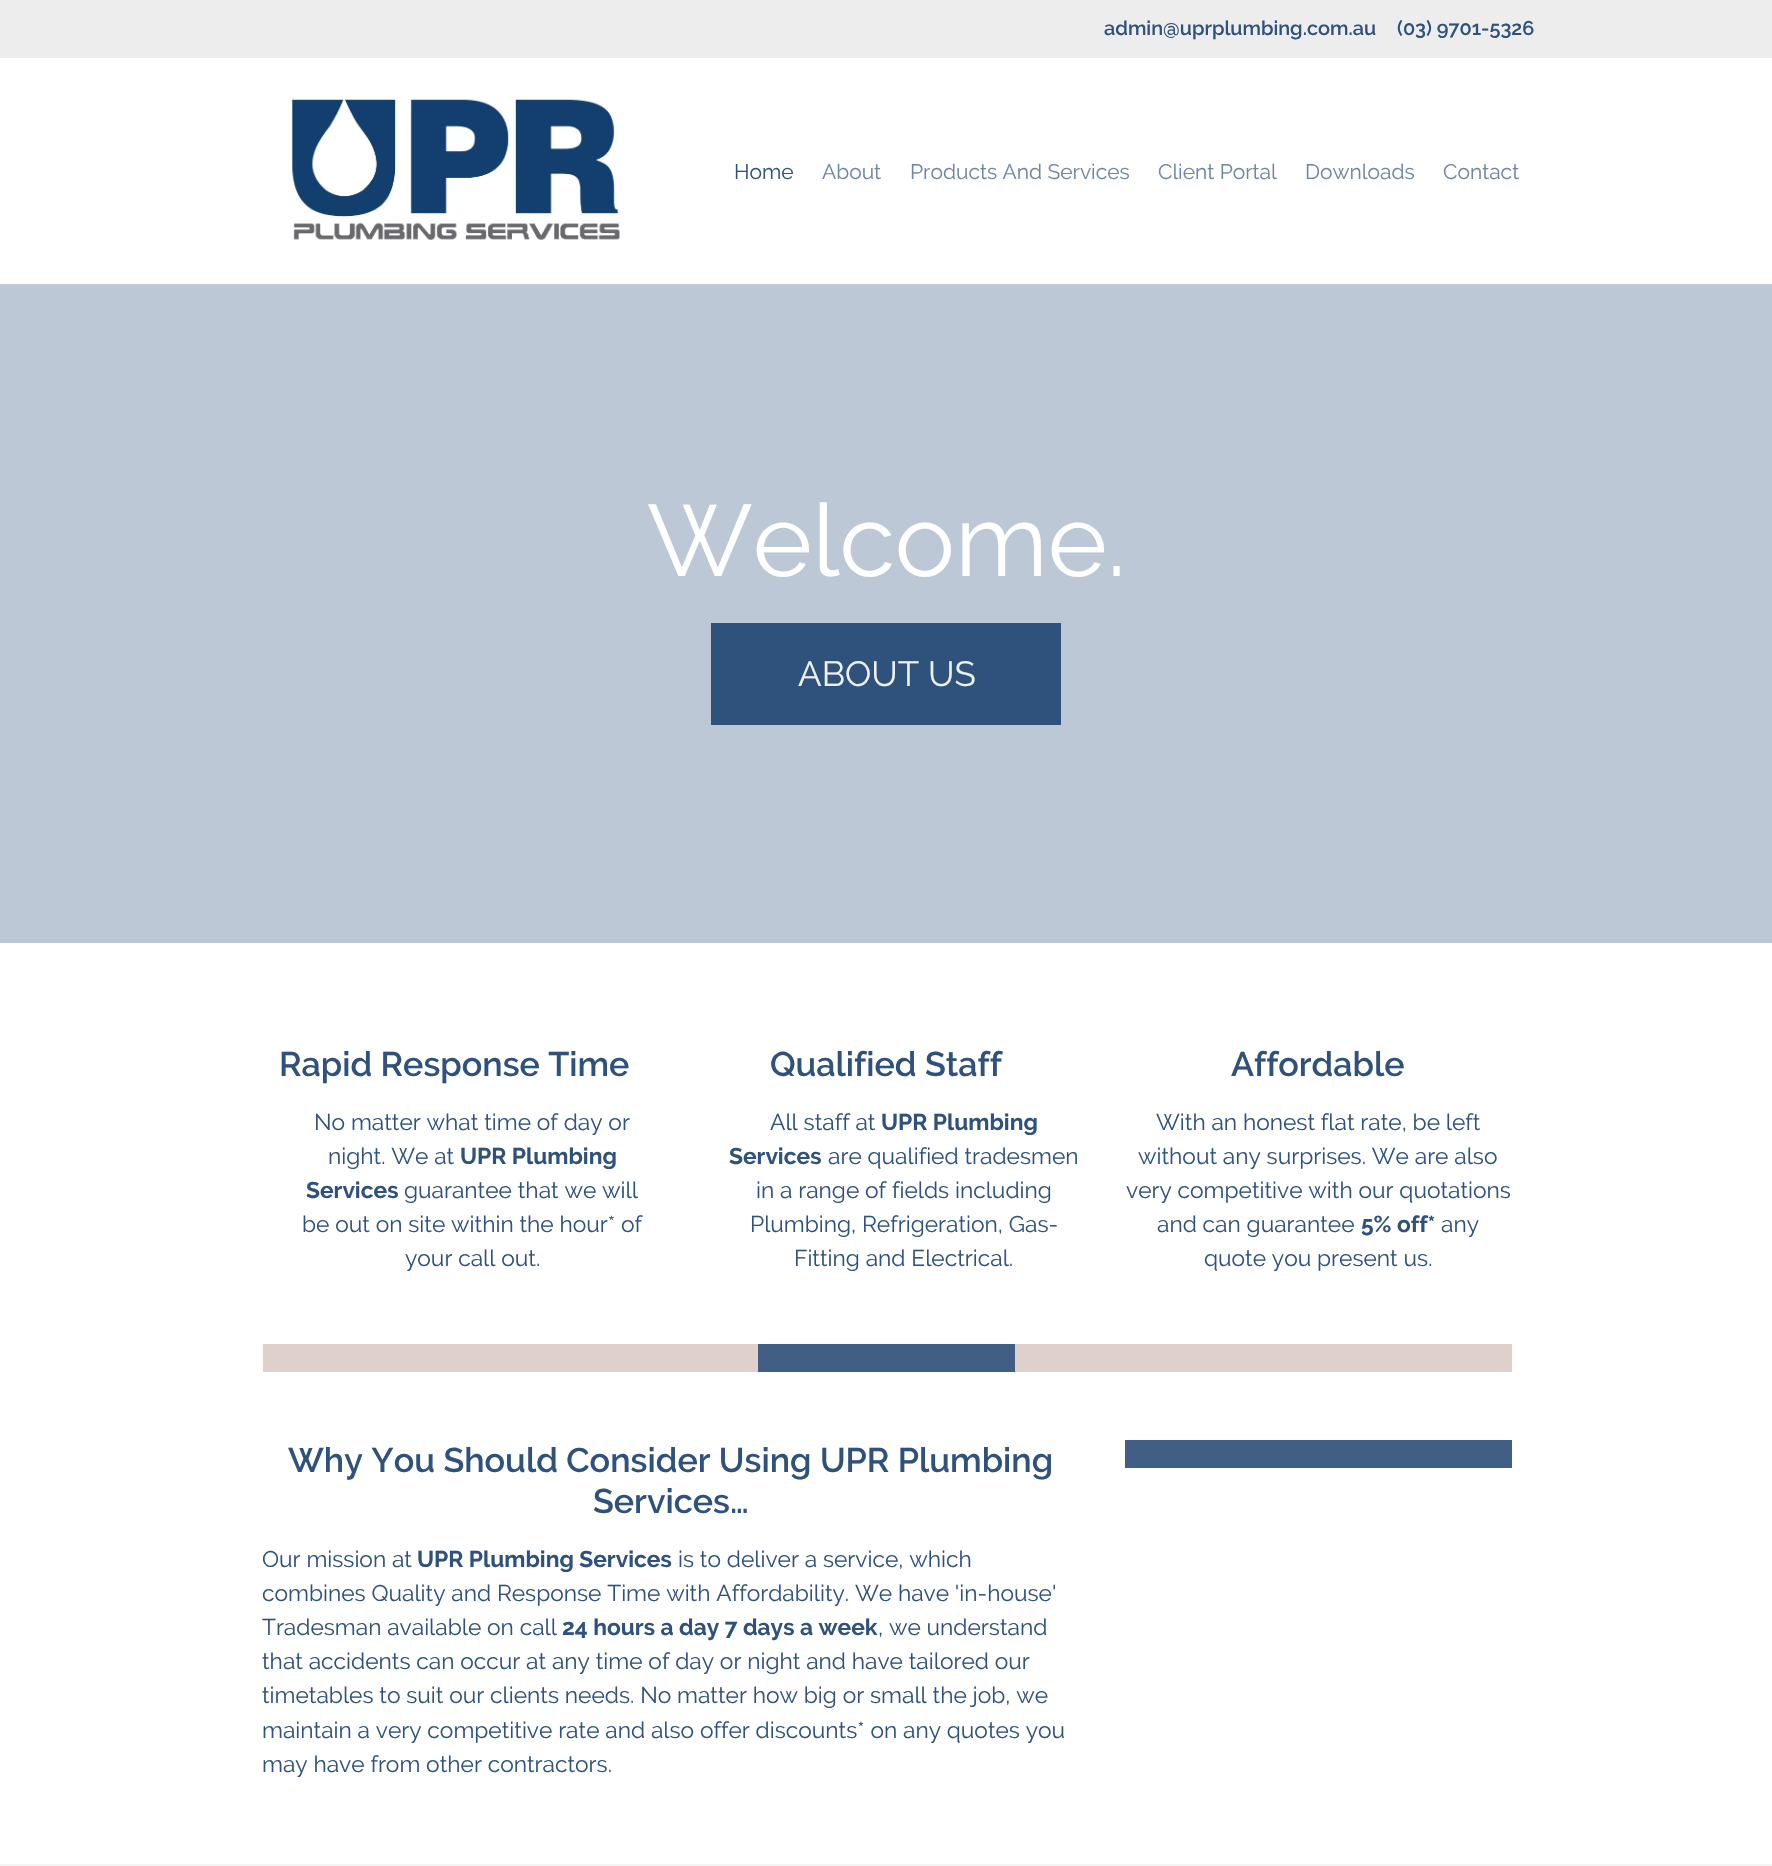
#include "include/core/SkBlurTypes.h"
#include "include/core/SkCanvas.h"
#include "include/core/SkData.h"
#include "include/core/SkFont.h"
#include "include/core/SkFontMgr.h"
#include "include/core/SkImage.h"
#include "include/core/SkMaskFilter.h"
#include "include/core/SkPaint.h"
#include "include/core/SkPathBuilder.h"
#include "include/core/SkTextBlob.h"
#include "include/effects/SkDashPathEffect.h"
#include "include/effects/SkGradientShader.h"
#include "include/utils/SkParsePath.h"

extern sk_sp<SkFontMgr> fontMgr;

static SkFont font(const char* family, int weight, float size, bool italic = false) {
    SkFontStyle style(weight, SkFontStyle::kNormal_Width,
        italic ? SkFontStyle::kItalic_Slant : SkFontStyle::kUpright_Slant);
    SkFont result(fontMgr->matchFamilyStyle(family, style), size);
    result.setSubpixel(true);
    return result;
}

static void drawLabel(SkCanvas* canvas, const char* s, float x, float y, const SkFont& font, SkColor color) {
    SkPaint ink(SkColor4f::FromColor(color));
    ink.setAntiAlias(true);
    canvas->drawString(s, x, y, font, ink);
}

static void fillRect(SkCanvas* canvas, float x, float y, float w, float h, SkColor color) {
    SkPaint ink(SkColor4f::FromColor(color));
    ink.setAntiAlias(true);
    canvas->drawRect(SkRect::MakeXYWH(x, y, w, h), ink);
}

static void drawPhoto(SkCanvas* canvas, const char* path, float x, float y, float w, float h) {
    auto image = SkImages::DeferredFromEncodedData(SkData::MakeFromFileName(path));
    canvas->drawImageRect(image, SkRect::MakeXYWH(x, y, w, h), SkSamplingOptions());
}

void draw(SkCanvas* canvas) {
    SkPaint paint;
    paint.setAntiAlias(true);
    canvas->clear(0xFFFFFFFF);
    fillRect(canvas, 0, 0, 1772, 58, 0xFFEDEDED);
    SkFont font1 = font("Raleway", 600, 19.9f);
    drawLabel(canvas, "admin@uprplumbing.com.au", 1104, 35, font1, 0xFF2F527D);
    drawLabel(canvas, "(03) 9701-5326", 1397, 35, font1, 0xFF2F527D);
    drawPhoto(canvas, "assets/img1.png", 292, 99, 328, 141);
    SkFont font2 = font("Raleway", 400, 21);
    drawLabel(canvas, "Home", 734, 179, font2, 0xFF2F527D);
    drawLabel(canvas, "About", 822, 179, font2, 0xFF6D86A4);
    drawLabel(canvas, "Products And Services", 910, 179, font2, 0xFF6D86A4);
    drawLabel(canvas, "Client Portal", 1158, 179, font2, 0xFF6D86A4);
    drawLabel(canvas, "Downloads", 1305, 179, font2, 0xFF6D86A4);
    drawLabel(canvas, "Contact", 1443, 179, font2, 0xFF6D86A4);
    fillRect(canvas, 0, 284, 1772, 659, 0xFFBDC8D6);
    SkFont font3 = font("Raleway", 400, 101);
    drawLabel(canvas, "Welcome.", 647, 576, font3, 0xFFFFFFFF);
    fillRect(canvas, 711, 623, 350, 102, 0xFF2F527D);
    SkFont font4 = font("Raleway", 400, 35);
    drawLabel(canvas, "ABOUT US", 798, 686, font4, 0xFFF0F0F0);
    SkFont font5 = font("Raleway", 600, 34.1f);
    drawLabel(canvas, "Rapid Response Time", 279, 1076, font5, 0xFF2F527D);
    SkFont font6 = font("Raleway", 400, 22.75f);
    drawLabel(canvas, "No matter what time of day or", 314, 1130, font6, 0xFF2F527D);
    drawLabel(canvas, "night. We at", 328, 1164, font6, 0xFF2F527D);
    SkFont font7 = font("Raleway", 700, 22.75f);
    drawLabel(canvas, "UPR Plumbing", 460, 1164, font7, 0xFF2F527D);
    drawLabel(canvas, "Services", 306, 1198, font7, 0xFF2F527D);
    drawLabel(canvas, "guarantee that we will", 404, 1198, font6, 0xFF2F527D);
    drawLabel(canvas, "be out on site within the hour* of", 302, 1232, font6, 0xFF2F527D);
    drawLabel(canvas, "your call out.", 405, 1266, font6, 0xFF2F527D);
    drawLabel(canvas, "Qualified Staff", 770, 1076, font5, 0xFF2F527D);
    drawLabel(canvas, "All staff at", 770, 1130, font6, 0xFF2F527D);
    drawLabel(canvas, "UPR Plumbing", 881, 1130, font7, 0xFF2F527D);
    drawLabel(canvas, "Services", 729, 1164, font7, 0xFF2F527D);
    drawLabel(canvas, "are qualified tradesmen", 828, 1164, font6, 0xFF2F527D);
    drawLabel(canvas, "in a range of fields including", 756, 1198, font6, 0xFF2F527D);
    drawLabel(canvas, "Plumbing, Refrigeration, Gas-", 750, 1232, font6, 0xFF2F527D);
    drawLabel(canvas, "Fitting and Electrical.", 794, 1266, font6, 0xFF2F527D);
    drawLabel(canvas, "Affordable", 1231, 1076, font5, 0xFF2F527D);
    drawLabel(canvas, "With an honest flat rate, be left", 1156, 1130, font6, 0xFF2F527D);
    drawLabel(canvas, "without any surprises. We are also", 1138, 1164, font6, 0xFF2F527D);
    drawLabel(canvas, "very competitive with our quotations", 1126, 1198, font6, 0xFF2F527D);
    drawLabel(canvas, "and can guarantee", 1157, 1232, font6, 0xFF2F527D);
    drawLabel(canvas, "5% off*", 1361, 1232, font7, 0xFF2F527D);
    drawLabel(canvas, "any", 1441, 1232, font6, 0xFF2F527D);
    drawLabel(canvas, "quote you present us.", 1204, 1266, font6, 0xFF2F527D);
    fillRect(canvas, 263, 1344, 1249, 28, 0xFFDFD0CB);
    fillRect(canvas, 758, 1344, 257, 28, 0xFF415F85);
    drawLabel(canvas, "Why You Should Consider Using UPR Plumbing", 288, 1472, font5, 0xFF2F527D);
    drawLabel(canvas, "Services…", 593, 1513, font5, 0xFF2F527D);
    drawLabel(canvas, "Our mission at", 262, 1567, font6, 0xFF2F527D);
    drawLabel(canvas, "UPR Plumbing Services", 417, 1567, font7, 0xFF2F527D);
    drawLabel(canvas, "is to deliver a service, which", 678, 1567, font6, 0xFF2F527D);
    drawLabel(canvas, "combines Quality and Response Time with Affordability. We have 'in-house'", 262, 1601, font6, 0xFF2F527D);
    drawLabel(canvas, "Tradesman available on call", 262, 1635, font6, 0xFF2F527D);
    drawLabel(canvas, "24 hours a day 7 days a week", 562, 1635, font7, 0xFF2F527D);
    drawLabel(canvas, ", we understand", 878, 1635, font6, 0xFF2F527D);
    drawLabel(canvas, "that accidents can occur at any time of day or night and have tailored our", 262, 1669, font6, 0xFF2F527D);
    drawLabel(canvas, "timetables to suit our clients needs. No matter how big or small the job, we", 262, 1703, font6, 0xFF2F527D);
    drawLabel(canvas, "maintain a very competitive rate and also offer discounts* on any quotes you", 262, 1738, font6, 0xFF2F527D);
    drawLabel(canvas, "may have from other contractors.", 262, 1772, font6, 0xFF2F527D);
    fillRect(canvas, 1125, 1440, 387, 28, 0xFF415F85);
    fillRect(canvas, 0, 1864, 1772, 2, 0xFFF4F4F4);
}
